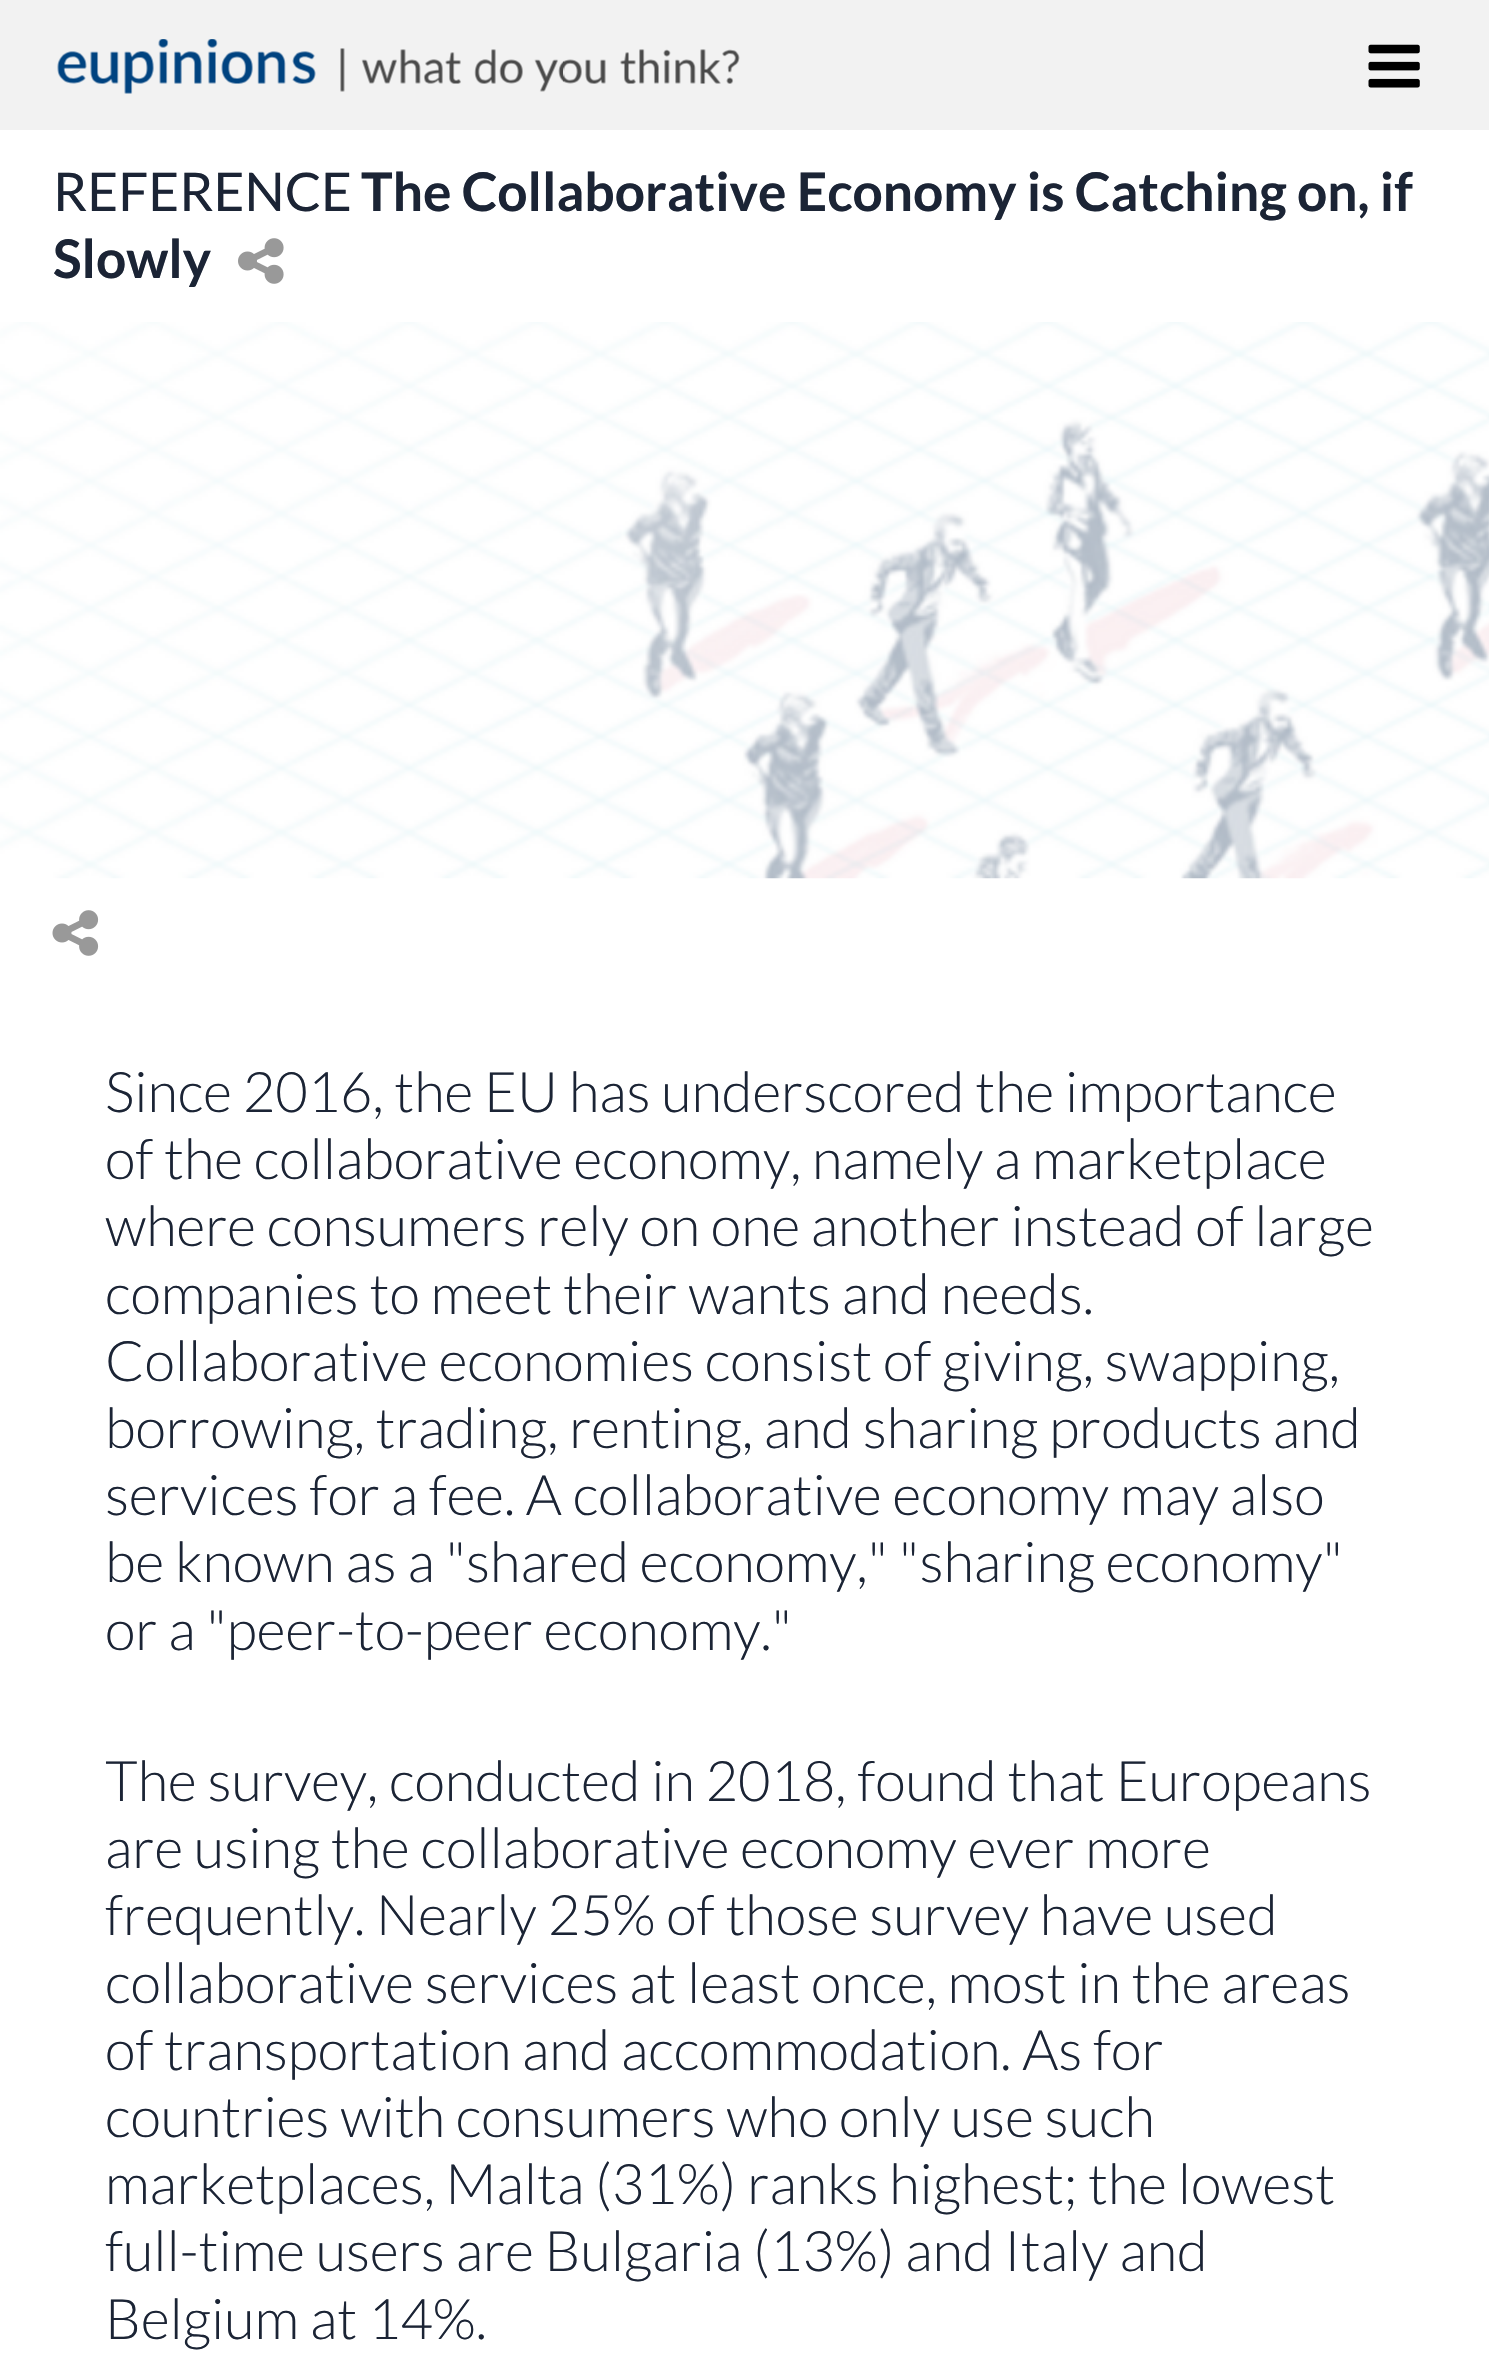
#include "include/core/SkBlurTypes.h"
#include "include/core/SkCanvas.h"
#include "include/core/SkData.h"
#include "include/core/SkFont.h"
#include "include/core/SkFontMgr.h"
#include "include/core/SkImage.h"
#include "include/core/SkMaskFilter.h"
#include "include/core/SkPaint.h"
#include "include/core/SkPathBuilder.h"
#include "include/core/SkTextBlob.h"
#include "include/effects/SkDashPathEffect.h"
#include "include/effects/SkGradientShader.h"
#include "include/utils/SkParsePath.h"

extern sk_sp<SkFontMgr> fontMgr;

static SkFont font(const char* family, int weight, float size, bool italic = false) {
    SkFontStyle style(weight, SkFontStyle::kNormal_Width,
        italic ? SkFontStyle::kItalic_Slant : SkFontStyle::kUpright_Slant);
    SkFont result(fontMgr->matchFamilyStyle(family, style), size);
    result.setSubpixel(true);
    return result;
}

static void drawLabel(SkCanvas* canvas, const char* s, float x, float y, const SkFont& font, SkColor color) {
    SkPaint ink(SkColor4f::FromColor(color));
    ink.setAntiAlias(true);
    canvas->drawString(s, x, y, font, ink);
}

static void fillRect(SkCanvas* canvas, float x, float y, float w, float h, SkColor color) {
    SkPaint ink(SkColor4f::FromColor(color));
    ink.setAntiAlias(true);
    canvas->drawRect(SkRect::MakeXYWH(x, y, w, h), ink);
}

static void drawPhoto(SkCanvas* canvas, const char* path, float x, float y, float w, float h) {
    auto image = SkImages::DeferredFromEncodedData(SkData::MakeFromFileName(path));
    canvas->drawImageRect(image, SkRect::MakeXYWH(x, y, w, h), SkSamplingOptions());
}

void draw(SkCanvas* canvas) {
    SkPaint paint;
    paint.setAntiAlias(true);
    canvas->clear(0xFFFFFFFF);
    fillRect(canvas, 0, 0, 1489, 130, 0xFFF2F2F2);
    drawPhoto(canvas, "assets/img1.png", 57, 39, 683, 55);
    drawPhoto(canvas, "assets/img2.png", 1368, 44, 52, 44);
    SkFont font1 = font("Lato", 400, 53.25f);
    drawLabel(canvas, "REFERENCE", 53, 211, font1, 0xFF1B2435);
    SkFont font2 = font("Lato", 700, 53.25f);
    drawLabel(canvas, "The Collaborative Economy is Catching on, if", 361, 211, font2, 0xFF1B2435);
    drawLabel(canvas, "Slowly", 53, 278, font2, 0xFF1B2435);
    drawPhoto(canvas, "assets/img3.png", 238, 238, 46, 46);
    drawPhoto(canvas, "assets/img4.png", 0, 322, 1489, 557);
    drawPhoto(canvas, "assets/img5.png", 52, 910, 47, 46);
    SkFont font3 = font("Lato", 300, 56);
    drawLabel(canvas, "Since 2016, the EU has underscored the importance", 105, 1112, font3, 0xFF1B2435);
    drawLabel(canvas, "of the collaborative economy, namely a marketplace", 105, 1179, font3, 0xFF1B2435);
    drawLabel(canvas, "where consumers rely on one another instead of large", 105, 1246, font3, 0xFF1B2435);
    drawLabel(canvas, "companies to meet their wants and needs.", 105, 1314, font3, 0xFF1B2435);
    drawLabel(canvas, "Collaborative economies consist of giving, swapping,", 105, 1381, font3, 0xFF1B2435);
    drawLabel(canvas, "borrowing, trading, renting, and sharing products and", 105, 1448, font3, 0xFF1B2435);
    drawLabel(canvas, "services for a fee. A collaborative economy may also", 105, 1515, font3, 0xFF1B2435);
    drawLabel(canvas, "be known as a \"shared economy,\" \"sharing economy\"", 105, 1582, font3, 0xFF1B2435);
    drawLabel(canvas, "or a \"peer-to-peer economy.\"", 105, 1650, font3, 0xFF1B2435);
    drawLabel(canvas, "The survey, conducted in 2018, found that Europeans", 105, 1801, font3, 0xFF1B2435);
    drawLabel(canvas, "are using the collaborative economy ever more", 105, 1868, font3, 0xFF1B2435);
    drawLabel(canvas, "frequently. Nearly 25% of those survey have used", 105, 1935, font3, 0xFF1B2435);
    drawLabel(canvas, "collaborative services at least once, most in the areas", 105, 2003, font3, 0xFF1B2435);
    drawLabel(canvas, "of transportation and accommodation. As for", 105, 2070, font3, 0xFF1B2435);
    drawLabel(canvas, "countries with consumers who only use such", 105, 2137, font3, 0xFF1B2435);
    drawLabel(canvas, "marketplaces, Malta (31%) ranks highest; the lowest", 105, 2204, font3, 0xFF1B2435);
    drawLabel(canvas, "full-time users are Bulgaria (13%) and Italy and", 105, 2271, font3, 0xFF1B2435);
    drawLabel(canvas, "Belgium at 14%.", 105, 2339, font3, 0xFF1B2435);
}
